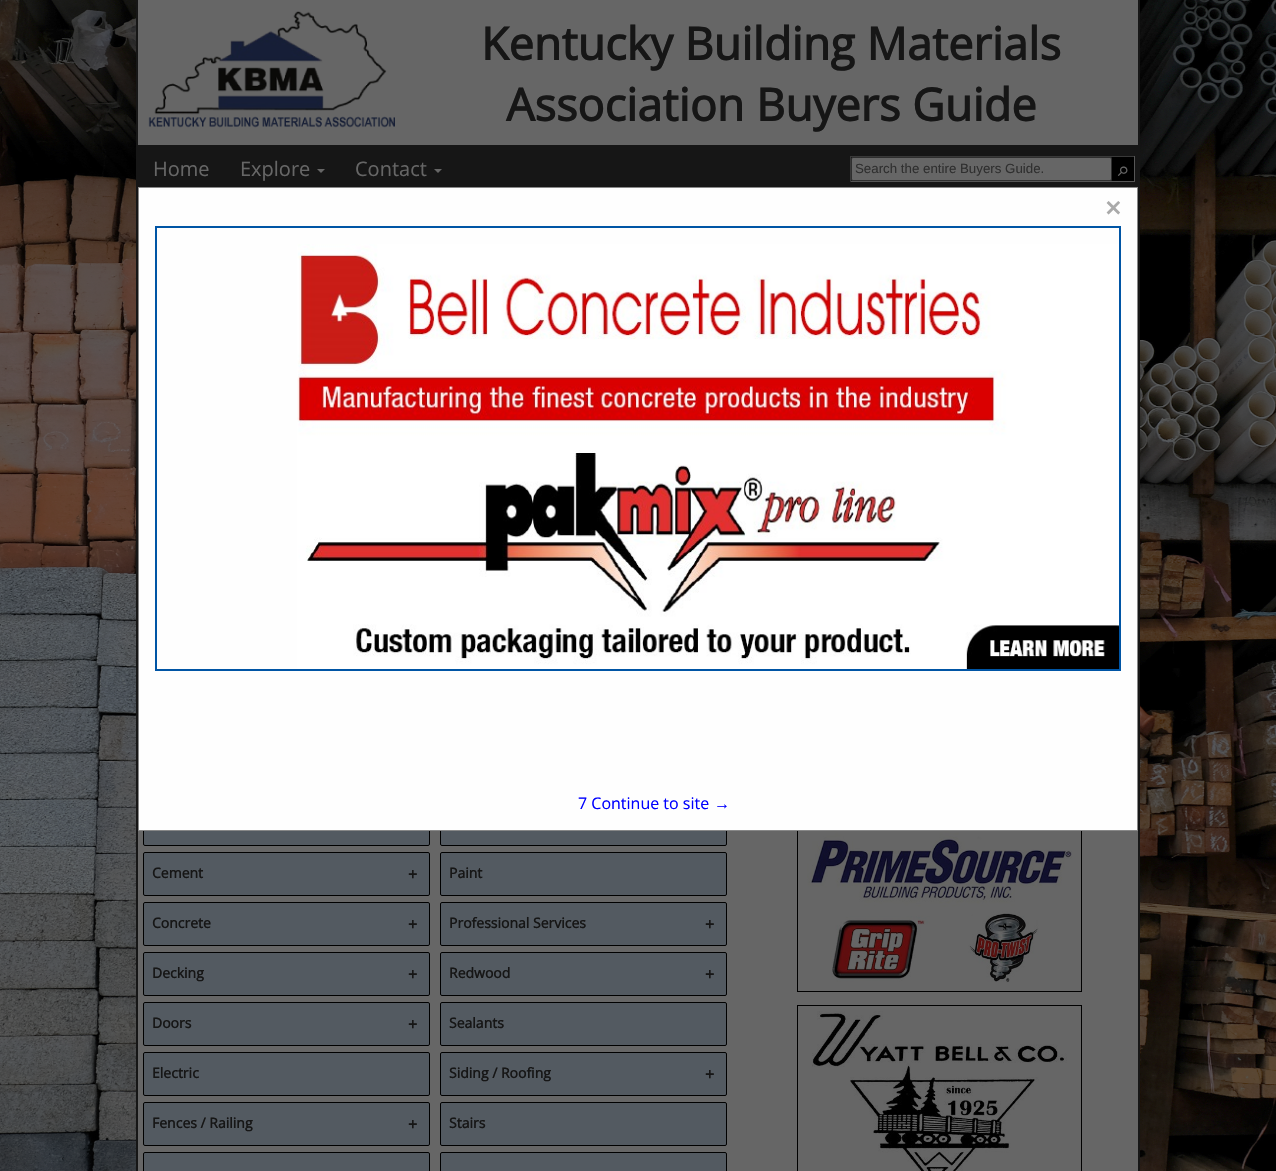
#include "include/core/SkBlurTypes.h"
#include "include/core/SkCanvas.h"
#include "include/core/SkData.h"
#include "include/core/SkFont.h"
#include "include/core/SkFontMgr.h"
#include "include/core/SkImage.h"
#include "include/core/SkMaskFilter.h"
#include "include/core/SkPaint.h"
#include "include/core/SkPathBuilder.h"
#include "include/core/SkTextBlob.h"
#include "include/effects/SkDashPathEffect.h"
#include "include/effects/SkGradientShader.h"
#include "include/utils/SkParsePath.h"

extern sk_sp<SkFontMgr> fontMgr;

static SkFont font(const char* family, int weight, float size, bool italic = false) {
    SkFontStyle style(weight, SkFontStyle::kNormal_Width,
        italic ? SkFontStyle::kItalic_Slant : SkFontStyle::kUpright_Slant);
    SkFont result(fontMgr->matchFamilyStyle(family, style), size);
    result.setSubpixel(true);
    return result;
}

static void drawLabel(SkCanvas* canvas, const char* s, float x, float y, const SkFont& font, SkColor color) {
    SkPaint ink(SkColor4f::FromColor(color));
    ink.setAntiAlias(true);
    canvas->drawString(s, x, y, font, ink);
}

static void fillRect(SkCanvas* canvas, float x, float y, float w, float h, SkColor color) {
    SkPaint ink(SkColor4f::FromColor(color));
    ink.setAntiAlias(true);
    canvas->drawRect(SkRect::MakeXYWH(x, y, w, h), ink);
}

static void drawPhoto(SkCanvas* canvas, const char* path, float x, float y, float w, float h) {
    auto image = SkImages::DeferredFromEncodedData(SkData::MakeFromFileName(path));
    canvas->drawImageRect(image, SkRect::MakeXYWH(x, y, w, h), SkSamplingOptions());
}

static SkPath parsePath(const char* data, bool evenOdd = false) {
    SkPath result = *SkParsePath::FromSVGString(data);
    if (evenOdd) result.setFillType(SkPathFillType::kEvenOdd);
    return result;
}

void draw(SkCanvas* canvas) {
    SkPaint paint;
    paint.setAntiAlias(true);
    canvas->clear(0xFFFFFFFF);
    drawPhoto(canvas, "assets/img1.png", 0, 0, 1276, 1171);
    fillRect(canvas, 138, 831, 1000, 340, 0xFF666666);
    fillRect(canvas, 1138, 0, 2, 1171, 0xFF161616);
    fillRect(canvas, 136, 0, 2, 1171, 0xFF161616);
    fillRect(canvas, 138, 0, 1000, 145, 0xFF666666);
    drawPhoto(canvas, "assets/img2.png", 148, 11, 247, 117);
    SkFont font1 = font("Open Sans", 700, 45);
    drawLabel(canvas, "Kentucky Building Materials", 481, 60, font1, 0xFF161616);
    drawLabel(canvas, "Association Buyers Guide", 506, 121, font1, 0xFF161616);
    fillRect(canvas, 138, 145, 1000, 42, 0xFF161616);
    SkFont font2 = font("Open Sans", 400, 20);
    drawLabel(canvas, "Home", 153, 176, font2, 0xFF666666);
    drawLabel(canvas, "Explore", 240, 176, font2, 0xFF666666);
    paint.setColor(0xFF666666);
    canvas->drawPath(parsePath("M317 169H325L321 173Z"), paint);
    drawLabel(canvas, "Contact", 355, 176, font2, 0xFF666666);
    canvas->drawPath(parsePath("M434 169H442L438 173Z"), paint);
    fillRect(canvas, 850, 156, 285, 1, 0xFF393939);
    fillRect(canvas, 1134, 156, 1, 26, 0xFF565656);
    fillRect(canvas, 850, 181, 285, 1, 0xFF565656);
    fillRect(canvas, 850, 156, 1, 26, 0xFF393939);
    canvas->drawRoundRect(SkRect::MakeXYWH(851.5f, 157.5f, 260, 23), 1.5f, 1.5f, paint);
    paint.setStroke(true);
    paint.setStrokeWidth(1);
    paint.setColor(0xFF2F2F2F);
    canvas->drawRoundRect(SkRect::MakeXYWH(851.5f, 157.5f, 260, 23), 1.5f, 1.5f, paint);
    SkFont font3 = font("Liberation Sans", 400, 13.3f);
    drawLabel(canvas, "Search the entire Buyers Guide.", 855, 173, font3, 0xFF2F2F2F);
    fillRect(canvas, 1112, 157, 22, 24, 0xFF000000);
    SkFont font4 = font("DejaVu Sans", 400, 13.3f);
    canvas->save();
    canvas->rotate(45, 1116, 171);
    drawLabel(canvas, "⚲", 1116, 171, font4, 0xFF666666);
    canvas->restore();
    paint.setStroke(false);
    paint.setColor(0xFF535A61);
    canvas->drawRoundRect(SkRect::MakeXYWH(143.5f, 802.5f, 286, 43), 1.5f, 1.5f, paint);
    paint.setStroke(true);
    paint.setColor(0xFF000000);
    canvas->drawRoundRect(SkRect::MakeXYWH(143.5f, 802.5f, 286, 43), 1.5f, 1.5f, paint);
    paint.setStroke(false);
    paint.setColor(0xFF535A61);
    canvas->drawRoundRect(SkRect::MakeXYWH(440.5f, 802.5f, 286, 43), 1.5f, 1.5f, paint);
    paint.setStroke(true);
    paint.setColor(0xFF000000);
    canvas->drawRoundRect(SkRect::MakeXYWH(440.5f, 802.5f, 286, 43), 1.5f, 1.5f, paint);
    canvas->drawRect(SkRect::MakeXYWH(797.5f, 802.5f, 284, 189), paint);
    paint.setStroke(false);
    paint.setColor(0xFFFEFEFE);
    canvas->drawRect(SkRect::MakeXYWH(138.5f, 187.5f, 999, 643), paint);
    paint.setStroke(true);
    paint.setColor(0xFF888888);
    canvas->drawRect(SkRect::MakeXYWH(138.5f, 187.5f, 999, 643), paint);
    SkFont font5 = font("Open Sans", 700, 28);
    drawLabel(canvas, "×", 1105, 218, font5, 0xFFAAAAAA);
    paint.setStrokeWidth(2);
    paint.setColor(0xFF0055A5);
    canvas->drawRect(SkRect::MakeXYWH(156, 227, 964, 443), paint);
    drawPhoto(canvas, "assets/img3.png", 297, 244, 822, 425);
    SkFont font6 = font("Open Sans", 400, 16);
    drawLabel(canvas, "7 Continue to site", 578, 809, font6, 0xFF0000FF);
    SkFont font7 = font("Liberation Sans", 400, 16);
    drawLabel(canvas, "→", 714, 809, font7, 0xFF0000FF);
    paint.setStroke(false);
    paint.setColor(0xFF535A61);
    canvas->drawRoundRect(SkRect::MakeXYWH(143.5f, 852.5f, 286, 43), 1.5f, 1.5f, paint);
    paint.setStroke(true);
    paint.setStrokeWidth(1);
    paint.setColor(0xFF000000);
    canvas->drawRoundRect(SkRect::MakeXYWH(143.5f, 852.5f, 286, 43), 1.5f, 1.5f, paint);
    SkFont font8 = font("Open Sans", 700, 14);
    drawLabel(canvas, "Cement", 152, 878, font8, 0xFF161616);
    SkFont font9 = font("Open Sans", 700, 16);
    drawLabel(canvas, "+", 408, 880, font9, 0xFF161616);
    paint.setStroke(false);
    paint.setColor(0xFF535A61);
    canvas->drawRoundRect(SkRect::MakeXYWH(143.5f, 902.5f, 286, 43), 1.5f, 1.5f, paint);
    paint.setStroke(true);
    paint.setColor(0xFF000000);
    canvas->drawRoundRect(SkRect::MakeXYWH(143.5f, 902.5f, 286, 43), 1.5f, 1.5f, paint);
    drawLabel(canvas, "Concrete", 152, 928, font8, 0xFF161616);
    drawLabel(canvas, "+", 408, 930, font9, 0xFF161616);
    paint.setStroke(false);
    paint.setColor(0xFF535A61);
    canvas->drawRoundRect(SkRect::MakeXYWH(143.5f, 952.5f, 286, 43), 1.5f, 1.5f, paint);
    paint.setStroke(true);
    paint.setColor(0xFF000000);
    canvas->drawRoundRect(SkRect::MakeXYWH(143.5f, 952.5f, 286, 43), 1.5f, 1.5f, paint);
    drawLabel(canvas, "Decking", 152, 978, font8, 0xFF161616);
    drawLabel(canvas, "+", 408, 980, font9, 0xFF161616);
    paint.setStroke(false);
    paint.setColor(0xFF535A61);
    canvas->drawRoundRect(SkRect::MakeXYWH(143.5f, 1002.5f, 286, 43), 1.5f, 1.5f, paint);
    paint.setStroke(true);
    paint.setColor(0xFF000000);
    canvas->drawRoundRect(SkRect::MakeXYWH(143.5f, 1002.5f, 286, 43), 1.5f, 1.5f, paint);
    drawLabel(canvas, "Doors", 152, 1028, font8, 0xFF161616);
    drawLabel(canvas, "+", 408, 1030, font9, 0xFF161616);
    paint.setStroke(false);
    paint.setColor(0xFF535A61);
    canvas->drawRoundRect(SkRect::MakeXYWH(143.5f, 1052.5f, 286, 43), 1.5f, 1.5f, paint);
    paint.setStroke(true);
    paint.setColor(0xFF000000);
    canvas->drawRoundRect(SkRect::MakeXYWH(143.5f, 1052.5f, 286, 43), 1.5f, 1.5f, paint);
    drawLabel(canvas, "Electric", 152, 1078, font8, 0xFF161616);
    paint.setStroke(false);
    paint.setColor(0xFF535A61);
    canvas->drawRoundRect(SkRect::MakeXYWH(143.5f, 1102.5f, 286, 43), 1.5f, 1.5f, paint);
    paint.setStroke(true);
    paint.setColor(0xFF000000);
    canvas->drawRoundRect(SkRect::MakeXYWH(143.5f, 1102.5f, 286, 43), 1.5f, 1.5f, paint);
    drawLabel(canvas, "Fences / Railing", 152, 1128, font8, 0xFF161616);
    drawLabel(canvas, "+", 408, 1130, font9, 0xFF161616);
    paint.setStroke(false);
    paint.setColor(0xFF535A61);
    canvas->drawRoundRect(SkRect::MakeXYWH(143.5f, 1152.5f, 286, 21), 1.5f, 1.5f, paint);
    paint.setStroke(true);
    paint.setColor(0xFF000000);
    canvas->drawRoundRect(SkRect::MakeXYWH(143.5f, 1152.5f, 286, 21), 1.5f, 1.5f, paint);
    paint.setStroke(false);
    paint.setColor(0xFF535A61);
    canvas->drawRoundRect(SkRect::MakeXYWH(440.5f, 852.5f, 286, 43), 1.5f, 1.5f, paint);
    paint.setStroke(true);
    paint.setColor(0xFF000000);
    canvas->drawRoundRect(SkRect::MakeXYWH(440.5f, 852.5f, 286, 43), 1.5f, 1.5f, paint);
    drawLabel(canvas, "Paint", 449, 878, font8, 0xFF161616);
    paint.setStroke(false);
    paint.setColor(0xFF535A61);
    canvas->drawRoundRect(SkRect::MakeXYWH(440.5f, 902.5f, 286, 43), 1.5f, 1.5f, paint);
    paint.setStroke(true);
    paint.setColor(0xFF000000);
    canvas->drawRoundRect(SkRect::MakeXYWH(440.5f, 902.5f, 286, 43), 1.5f, 1.5f, paint);
    drawLabel(canvas, "Professional Services", 449, 928, font8, 0xFF161616);
    drawLabel(canvas, "+", 705, 930, font9, 0xFF161616);
    paint.setStroke(false);
    paint.setColor(0xFF535A61);
    canvas->drawRoundRect(SkRect::MakeXYWH(440.5f, 952.5f, 286, 43), 1.5f, 1.5f, paint);
    paint.setStroke(true);
    paint.setColor(0xFF000000);
    canvas->drawRoundRect(SkRect::MakeXYWH(440.5f, 952.5f, 286, 43), 1.5f, 1.5f, paint);
    drawLabel(canvas, "Redwood", 449, 978, font8, 0xFF161616);
    drawLabel(canvas, "+", 705, 980, font9, 0xFF161616);
    paint.setStroke(false);
    paint.setColor(0xFF535A61);
    canvas->drawRoundRect(SkRect::MakeXYWH(440.5f, 1002.5f, 286, 43), 1.5f, 1.5f, paint);
    paint.setStroke(true);
    paint.setColor(0xFF000000);
    canvas->drawRoundRect(SkRect::MakeXYWH(440.5f, 1002.5f, 286, 43), 1.5f, 1.5f, paint);
    drawLabel(canvas, "Sealants", 449, 1028, font8, 0xFF161616);
    paint.setStroke(false);
    paint.setColor(0xFF535A61);
    canvas->drawRoundRect(SkRect::MakeXYWH(440.5f, 1052.5f, 286, 43), 1.5f, 1.5f, paint);
    paint.setStroke(true);
    paint.setColor(0xFF000000);
    canvas->drawRoundRect(SkRect::MakeXYWH(440.5f, 1052.5f, 286, 43), 1.5f, 1.5f, paint);
    drawLabel(canvas, "Siding / Roofing", 449, 1078, font8, 0xFF161616);
    drawLabel(canvas, "+", 705, 1080, font9, 0xFF161616);
    paint.setStroke(false);
    paint.setColor(0xFF535A61);
    canvas->drawRoundRect(SkRect::MakeXYWH(440.5f, 1102.5f, 286, 43), 1.5f, 1.5f, paint);
    paint.setStroke(true);
    paint.setColor(0xFF000000);
    canvas->drawRoundRect(SkRect::MakeXYWH(440.5f, 1102.5f, 286, 43), 1.5f, 1.5f, paint);
    drawLabel(canvas, "Stairs", 449, 1128, font8, 0xFF161616);
    paint.setStroke(false);
    paint.setColor(0xFF535A61);
    canvas->drawRoundRect(SkRect::MakeXYWH(440.5f, 1152.5f, 286, 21), 1.5f, 1.5f, paint);
    paint.setStroke(true);
    paint.setColor(0xFF000000);
    canvas->drawRoundRect(SkRect::MakeXYWH(440.5f, 1152.5f, 286, 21), 1.5f, 1.5f, paint);
    drawPhoto(canvas, "assets/img4.png", 807, 831, 265, 152);
    canvas->drawRect(SkRect::MakeXYWH(797.5f, 1005.5f, 284, 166), paint);
    drawPhoto(canvas, "assets/img5.png", 812, 1011, 255, 160);
}
